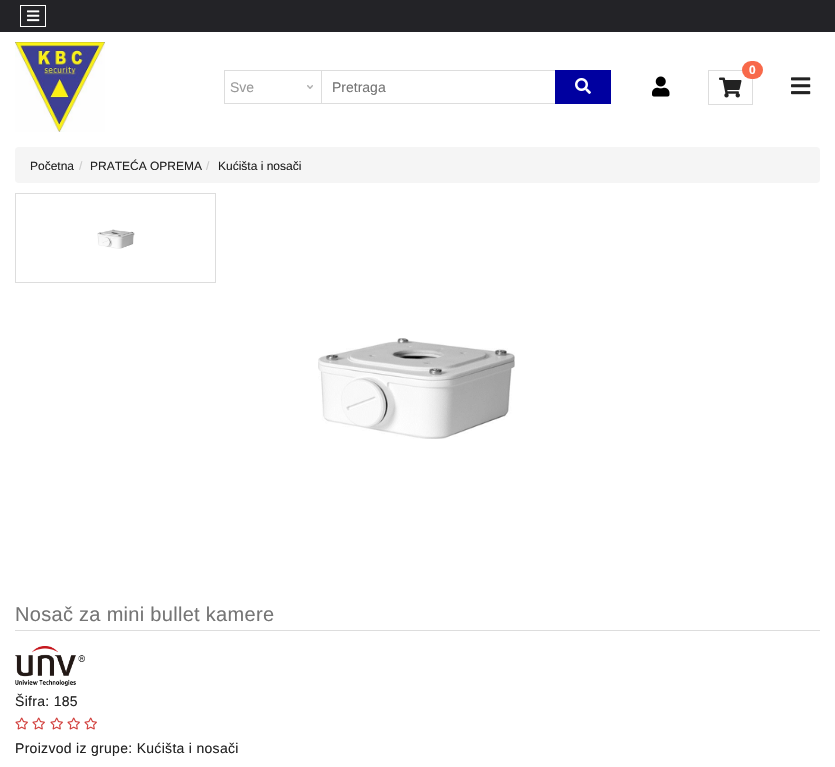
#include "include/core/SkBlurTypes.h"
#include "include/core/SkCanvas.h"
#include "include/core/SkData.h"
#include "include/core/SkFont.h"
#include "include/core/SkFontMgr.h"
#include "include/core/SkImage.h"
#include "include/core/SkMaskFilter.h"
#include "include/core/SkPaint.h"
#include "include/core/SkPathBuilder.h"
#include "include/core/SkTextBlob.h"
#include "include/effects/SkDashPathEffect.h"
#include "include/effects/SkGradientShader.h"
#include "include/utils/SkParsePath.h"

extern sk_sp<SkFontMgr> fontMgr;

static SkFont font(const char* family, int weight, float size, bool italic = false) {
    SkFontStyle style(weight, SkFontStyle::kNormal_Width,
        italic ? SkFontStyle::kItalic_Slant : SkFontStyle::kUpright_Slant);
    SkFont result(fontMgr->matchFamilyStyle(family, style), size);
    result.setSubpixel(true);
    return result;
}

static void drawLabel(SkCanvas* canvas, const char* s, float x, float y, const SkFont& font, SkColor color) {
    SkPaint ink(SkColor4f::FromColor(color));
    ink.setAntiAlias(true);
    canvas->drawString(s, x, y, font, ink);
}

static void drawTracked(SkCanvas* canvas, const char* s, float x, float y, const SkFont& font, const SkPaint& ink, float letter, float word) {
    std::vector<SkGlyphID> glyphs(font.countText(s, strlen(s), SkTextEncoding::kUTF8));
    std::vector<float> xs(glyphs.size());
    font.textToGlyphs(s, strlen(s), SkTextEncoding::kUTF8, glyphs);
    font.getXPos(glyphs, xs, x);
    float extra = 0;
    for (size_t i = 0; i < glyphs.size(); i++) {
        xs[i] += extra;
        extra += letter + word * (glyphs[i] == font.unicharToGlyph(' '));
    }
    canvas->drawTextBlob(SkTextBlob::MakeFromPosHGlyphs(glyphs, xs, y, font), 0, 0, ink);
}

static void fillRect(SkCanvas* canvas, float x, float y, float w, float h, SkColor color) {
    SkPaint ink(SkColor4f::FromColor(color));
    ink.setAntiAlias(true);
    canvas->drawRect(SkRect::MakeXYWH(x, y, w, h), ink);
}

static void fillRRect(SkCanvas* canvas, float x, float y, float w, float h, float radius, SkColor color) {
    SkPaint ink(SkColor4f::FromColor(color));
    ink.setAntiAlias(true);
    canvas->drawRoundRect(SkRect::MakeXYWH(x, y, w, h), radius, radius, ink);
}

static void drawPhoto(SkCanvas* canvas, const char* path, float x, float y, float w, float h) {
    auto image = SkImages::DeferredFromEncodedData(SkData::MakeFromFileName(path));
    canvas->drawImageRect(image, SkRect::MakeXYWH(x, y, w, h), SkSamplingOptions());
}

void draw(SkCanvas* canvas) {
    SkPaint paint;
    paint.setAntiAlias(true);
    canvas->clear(0xFFFFFFFF);
    fillRect(canvas, 0, 0, 835, 32, 0xFF232327);
    paint.setStroke(true);
    paint.setStrokeWidth(1);
    paint.setColor(0xFFFFFFFF);
    canvas->drawRect(SkRect::MakeXYWH(20.5f, 5.5f, 25, 21), paint);
    drawPhoto(canvas, "assets/img1.png", 27, 10, 13, 12);
    drawPhoto(canvas, "assets/img2.png", 15, 42, 90, 90);
    paint.setColor(0xFFDDDDDD);
    canvas->drawRect(SkRect::MakeXYWH(708.5f, 70.5f, 44, 34), paint);
    fillRRect(canvas, 742, 61, 21, 18, 9, 0xFFF8694A);
    SkFont font1 = font("Liberation Sans", 700, 12);
    drawLabel(canvas, "0", 749, 74, font1, 0xFFFFFFFF);
    drawPhoto(canvas, "assets/img3.png", 719, 77, 23, 21);
    drawPhoto(canvas, "assets/img4.png", 307, 85, 6, 4);
    fillRect(canvas, 224, 70, 97, 1, 0xFFDDDDDD);
    fillRect(canvas, 224, 103, 97, 1, 0xFFDDDDDD);
    fillRect(canvas, 224, 70, 1, 34, 0xFFDDDDDD);
    SkFont font2 = font("Liberation Sans", 400, 14);
    drawLabel(canvas, "Sve", 230, 92, font2, 0xFF999999);
    canvas->drawRect(SkRect::MakeXYWH(321.5f, 70.5f, 289, 33), paint);
    drawLabel(canvas, "Pretraga", 332, 92, font2, 0xFF757575);
    fillRect(canvas, 555, 70, 56, 34, 0xFF0000A0);
    drawPhoto(canvas, "assets/img5.png", 575, 78, 16, 16);
    drawPhoto(canvas, "assets/img6.png", 652, 76, 18, 21);
    drawPhoto(canvas, "assets/img7.png", 791, 77, 20, 18);
    fillRRect(canvas, 15, 147, 805, 36, 4, 0xFFF5F5F5);
    SkFont font3 = font("Liberation Sans", 400, 12);
    drawLabel(canvas, "Početna", 30, 170, font3, 0xFF222222);
    drawLabel(canvas, "/", 79, 170, font3, 0xFFCCCCCC);
    drawLabel(canvas, "PRATEĆA OPREMA", 90, 170, font3, 0xFF222222);
    drawLabel(canvas, "/", 206, 170, font3, 0xFFCCCCCC);
    drawLabel(canvas, "Kućišta i nosači", 218, 170, font3, 0xFF222222);
    canvas->drawRect(SkRect::MakeXYWH(15.5f, 193.5f, 200, 89), paint);
    drawPhoto(canvas, "assets/img8.png", 97, 229, 38, 20);
    drawPhoto(canvas, "assets/img9.png", 318, 338, 197, 101);
    fillRect(canvas, 15, 630, 805, 1, 0xFFDDDDDD);
    SkFont font4 = font("Liberation Sans", 400, 20);
    paint.setStroke(false);
    paint.setColor(0xFF757575);
    drawTracked(canvas, "Nosač za mini bullet kamere", 15, 621, font4, paint, 0.3f, 0);
    drawPhoto(canvas, "assets/img10.png", 15, 646, 70, 40);
    paint.setColor(0xFF222222);
    drawTracked(canvas, "Šifra: 185", 15, 706, font2, paint, 0.3f, 0);
    drawPhoto(canvas, "assets/img11.png", 15, 717, 13, 13);
    drawPhoto(canvas, "assets/img11.png", 32, 717, 13, 13);
    drawPhoto(canvas, "assets/img11.png", 50, 717, 13, 13);
    drawPhoto(canvas, "assets/img11.png", 67, 717, 13, 13);
    drawPhoto(canvas, "assets/img11.png", 84, 717, 13, 13);
    drawTracked(canvas, "Proizvod iz grupe: Kućišta i nosači", 15, 753, font2, paint, 0.3f, 0);
}
